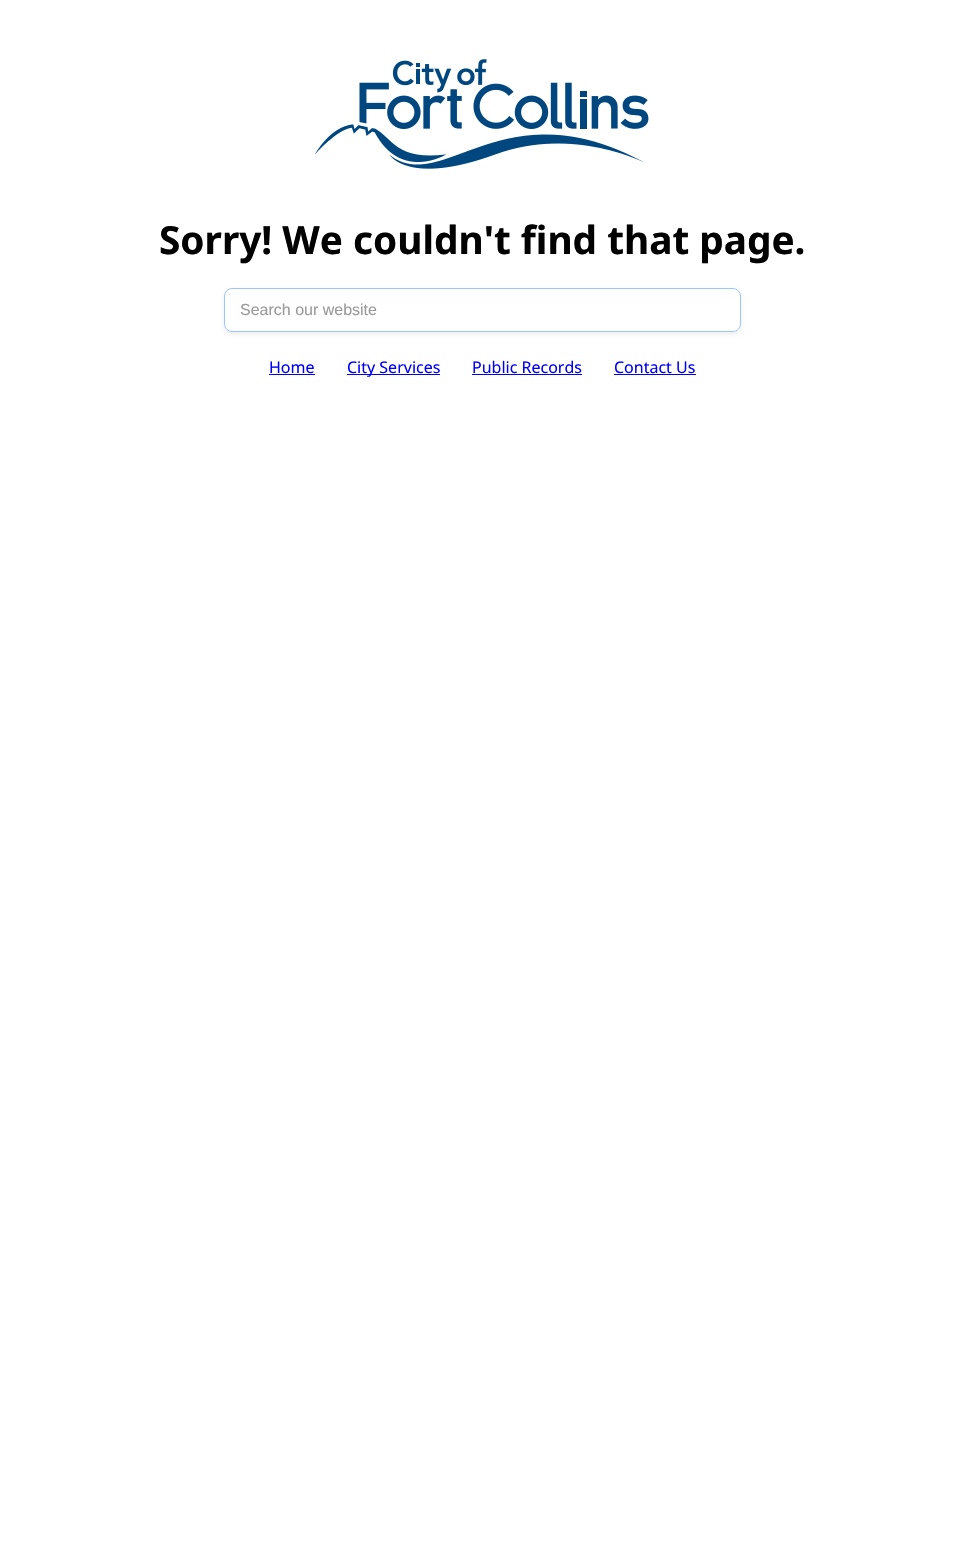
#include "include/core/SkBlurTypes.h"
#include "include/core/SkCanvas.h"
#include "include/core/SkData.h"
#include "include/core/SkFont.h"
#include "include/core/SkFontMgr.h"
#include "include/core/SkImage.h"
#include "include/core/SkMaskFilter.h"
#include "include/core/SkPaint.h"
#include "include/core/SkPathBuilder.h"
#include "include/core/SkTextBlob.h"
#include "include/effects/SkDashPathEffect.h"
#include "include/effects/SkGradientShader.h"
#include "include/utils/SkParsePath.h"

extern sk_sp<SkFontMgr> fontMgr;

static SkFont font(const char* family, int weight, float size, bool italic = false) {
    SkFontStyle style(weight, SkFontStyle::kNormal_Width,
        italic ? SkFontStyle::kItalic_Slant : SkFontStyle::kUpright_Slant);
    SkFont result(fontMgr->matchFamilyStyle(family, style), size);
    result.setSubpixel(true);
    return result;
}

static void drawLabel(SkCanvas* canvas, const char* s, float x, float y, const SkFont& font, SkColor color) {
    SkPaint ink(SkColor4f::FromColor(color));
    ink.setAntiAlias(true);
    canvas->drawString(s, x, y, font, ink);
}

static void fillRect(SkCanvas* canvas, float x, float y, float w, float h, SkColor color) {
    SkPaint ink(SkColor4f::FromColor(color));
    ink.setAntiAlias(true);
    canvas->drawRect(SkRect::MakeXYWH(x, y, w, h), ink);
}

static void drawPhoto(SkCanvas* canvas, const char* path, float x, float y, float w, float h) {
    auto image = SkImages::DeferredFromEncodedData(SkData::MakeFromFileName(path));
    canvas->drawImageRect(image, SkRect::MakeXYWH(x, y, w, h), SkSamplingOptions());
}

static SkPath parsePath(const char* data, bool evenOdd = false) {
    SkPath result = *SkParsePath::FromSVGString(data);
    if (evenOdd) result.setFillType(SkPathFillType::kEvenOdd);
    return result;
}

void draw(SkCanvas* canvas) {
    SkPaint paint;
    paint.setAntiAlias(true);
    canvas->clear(0xFFFFFFFF);
    drawPhoto(canvas, "assets/img1.png", 315, 59, 334, 110);
    SkFont font1 = font("Noto Sans", 700, 38.75f);
    drawLabel(canvas, "Sorry! We couldn't find that page.", 159, 254, font1, 0xFF000000);
    canvas->save();
    canvas->clipPath(parsePath("M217 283H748V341H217ZM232 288H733C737.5 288 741 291.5 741 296V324C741 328.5 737.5 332 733 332H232C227.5 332 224 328.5 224 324V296C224 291.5 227.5 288 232 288Z", true), true);
    paint.setColor(0x12000000);
    paint.setMaskFilter(SkMaskFilter::MakeBlur(kNormal_SkBlurStyle, 2));
    canvas->drawRoundRect(SkRect::MakeXYWH(224, 290, 517, 44), 8, 8, paint);
    paint.setMaskFilter(nullptr);
    canvas->restore();
    paint.setStroke(true);
    paint.setStrokeWidth(1);
    paint.setColor(0xFF9EC5FE);
    canvas->drawRoundRect(SkRect::MakeXYWH(224.5f, 288.5f, 516, 43), 7.5f, 7.5f, paint);
    SkFont font2 = font("Liberation Sans", 400, 16);
    drawLabel(canvas, "Search our website", 240, 315, font2, 0xFF999999);
    SkFont font3 = font("Noto Sans", 400, 16);
    drawLabel(canvas, "Home", 269, 373, font3, 0xFF0000FF);
    fillRect(canvas, 269, 374, 46, 1, 0xFF0000FF);
    fillRect(canvas, 347, 374, 93, 1, 0xFF0000FF);
    drawLabel(canvas, "City Services", 347, 373, font3, 0xFF0000FF);
    drawLabel(canvas, "Public Records", 472, 373, font3, 0xFF0000FF);
    fillRect(canvas, 472, 374, 110, 1, 0xFF0000FF);
    drawLabel(canvas, "Contact Us", 614, 373, font3, 0xFF0000FF);
    fillRect(canvas, 614, 374, 82, 1, 0xFF0000FF);
}
